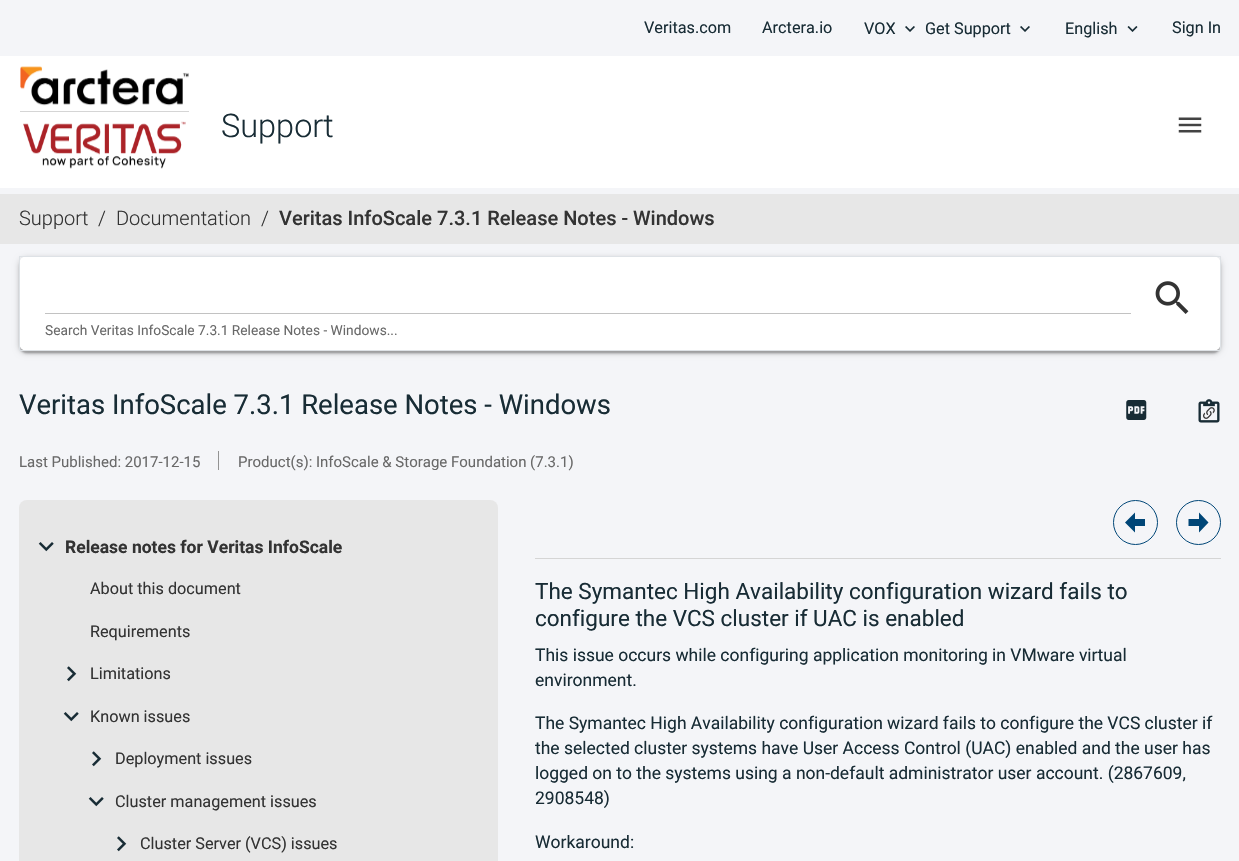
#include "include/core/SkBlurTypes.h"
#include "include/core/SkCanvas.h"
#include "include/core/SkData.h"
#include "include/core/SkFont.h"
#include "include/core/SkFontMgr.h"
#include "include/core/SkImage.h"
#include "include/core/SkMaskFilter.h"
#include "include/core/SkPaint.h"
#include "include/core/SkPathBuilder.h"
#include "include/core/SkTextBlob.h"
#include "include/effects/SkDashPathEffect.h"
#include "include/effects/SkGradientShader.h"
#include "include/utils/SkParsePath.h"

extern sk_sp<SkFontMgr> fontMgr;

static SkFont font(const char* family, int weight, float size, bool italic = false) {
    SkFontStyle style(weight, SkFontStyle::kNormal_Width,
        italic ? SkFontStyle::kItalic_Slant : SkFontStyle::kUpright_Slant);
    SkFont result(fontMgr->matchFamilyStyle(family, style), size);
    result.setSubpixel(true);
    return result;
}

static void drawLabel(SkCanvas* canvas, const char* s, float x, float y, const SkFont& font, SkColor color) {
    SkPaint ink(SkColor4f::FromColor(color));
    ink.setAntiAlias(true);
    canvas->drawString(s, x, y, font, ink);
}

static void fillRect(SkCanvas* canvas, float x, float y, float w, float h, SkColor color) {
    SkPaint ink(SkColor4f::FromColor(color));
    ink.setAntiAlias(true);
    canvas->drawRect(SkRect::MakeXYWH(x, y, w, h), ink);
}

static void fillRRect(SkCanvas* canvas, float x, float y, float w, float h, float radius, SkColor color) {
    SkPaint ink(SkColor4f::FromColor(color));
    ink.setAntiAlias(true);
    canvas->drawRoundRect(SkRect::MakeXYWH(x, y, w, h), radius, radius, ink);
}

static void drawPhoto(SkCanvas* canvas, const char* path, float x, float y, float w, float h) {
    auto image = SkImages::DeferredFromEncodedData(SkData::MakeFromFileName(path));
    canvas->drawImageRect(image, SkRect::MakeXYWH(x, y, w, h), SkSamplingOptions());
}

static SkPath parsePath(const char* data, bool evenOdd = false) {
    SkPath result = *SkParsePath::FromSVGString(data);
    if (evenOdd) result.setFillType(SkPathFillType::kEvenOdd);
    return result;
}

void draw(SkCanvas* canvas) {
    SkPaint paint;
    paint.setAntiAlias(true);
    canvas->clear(0xFFF4F5F8);
    SkFont font1 = font("Roboto", 400, 16.25f);
    drawLabel(canvas, "Veritas.com", 644, 33, font1, 0xFF182C35);
    drawLabel(canvas, "Arctera.io", 762, 33, font1, 0xFF182C35);
    drawLabel(canvas, "VOX", 864, 34, font1, 0xFF182C35);
    drawPhoto(canvas, "assets/img1.png", 905, 26, 10, 6);
    drawLabel(canvas, "Get Support", 925, 34, font1, 0xFF182C35);
    drawPhoto(canvas, "assets/img1.png", 1020, 26, 10, 6);
    drawLabel(canvas, "English", 1065, 34, font1, 0xFF182C35);
    drawPhoto(canvas, "assets/img2.png", 1127, 26, 11, 6);
    drawLabel(canvas, "Sign In", 1172, 33, font1, 0xFF182C35);
    fillRect(canvas, 0, 56, 1239, 132, 0xFFFFFFFF);
    drawPhoto(canvas, "assets/img3.png", 20, 66, 169, 40);
    fillRect(canvas, 20, 111, 169, 1, 0xFFD5D5D5);
    drawPhoto(canvas, "assets/img4.png", 23, 121, 163, 48);
    SkFont font2 = font("Roboto", 300, 32.5f);
    drawLabel(canvas, "Support", 221, 137, font2, 0xFF182C35);
    drawPhoto(canvas, "assets/img5.png", 1178, 117, 24, 16);
    fillRect(canvas, 0, 194, 1239, 50, 0xFFE7E7E7);
    SkFont font3 = font("Roboto", 300, 20);
    drawLabel(canvas, "Support", 19, 225, font3, 0xFF333333);
    drawLabel(canvas, "/", 98, 225, font3, 0xFF333333);
    drawLabel(canvas, "Documentation", 116, 225, font3, 0xFF333333);
    drawLabel(canvas, "/", 261, 225, font3, 0xFF333333);
    SkFont font4 = font("Roboto", 500, 20);
    drawLabel(canvas, "Veritas InfoScale 7.3.1 Release Notes - Windows", 279, 225, font4, 0xFF333333);
    paint.setColor(0x1F000000);
    paint.setMaskFilter(SkMaskFilter::MakeBlur(kNormal_SkBlurStyle, 0.5f));
    canvas->drawRoundRect(SkRect::MakeXYWH(21, 263, 1198, 90), 5, 5, paint);
    paint.setMaskFilter(nullptr);
    paint.setColor(0x24000000);
    paint.setMaskFilter(SkMaskFilter::MakeBlur(kNormal_SkBlurStyle, 1));
    canvas->drawRoundRect(SkRect::MakeXYWH(19, 259, 1202, 95), 8, 8, paint);
    paint.setMaskFilter(nullptr);
    paint.setColor(0x33000000);
    paint.setMaskFilter(SkMaskFilter::MakeBlur(kNormal_SkBlurStyle, 3));
    canvas->drawRoundRect(SkRect::MakeXYWH(19, 258, 1202, 95), 8, 8, paint);
    paint.setMaskFilter(nullptr);
    fillRRect(canvas, 19, 256, 1202, 95, 8, 0xFFFFFFFF);
    paint.setStroke(true);
    paint.setStrokeWidth(1);
    paint.setColor(0xFFDEE2E6);
    canvas->drawRect(SkRect::MakeXYWH(19.5f, 256.5f, 1201, 94), paint);
    fillRect(canvas, 45, 313, 1086, 1, 0xFFC2C2C2);
    drawPhoto(canvas, "assets/img6.png", 1155, 281, 34, 33);
    SkFont font5 = font("Roboto", 400, 13.75f);
    drawLabel(canvas, "Search Veritas InfoScale 7.3.1 Release Notes - Windows...", 45, 335, font5, 0xFF696969);
    SkFont font6 = font("Roboto", 400, 27.5f);
    drawLabel(canvas, "Veritas InfoScale 7.3.1 Release Notes - Windows", 19, 414, font6, 0xFF182C35);
    drawPhoto(canvas, "assets/img7.png", 1126, 400, 21, 20);
    drawPhoto(canvas, "assets/img8.png", 1198, 399, 22, 24);
    drawPhoto(canvas, "assets/img9.png", 1203, 407, 12, 12);
    SkFont font7 = font("Roboto", 400, 15);
    drawLabel(canvas, "Last Published: 2017-12-15", 19, 467, font7, 0xFF696969);
    fillRect(canvas, 218, 451, 1, 19, 0xFF939393);
    drawLabel(canvas, "Product(s): InfoScale & Storage Foundation (7.3.1)", 238, 467, font7, 0xFF696969);
    fillRRect(canvas, 19, 500, 479, 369, 8, 0xFFE7E7E7);
    drawPhoto(canvas, "assets/img10.png", 38, 542, 16, 10);
    SkFont font8 = font("Roboto", 700, 17.5f);
    drawLabel(canvas, "Release notes for Veritas InfoScale", 65, 553, font8, 0xFF333333);
    drawLabel(canvas, "About this document", 90, 594, font1, 0xFF333333);
    drawLabel(canvas, "Requirements", 90, 637, font1, 0xFF333333);
    drawPhoto(canvas, "assets/img11.png", 67, 666, 10, 16);
    drawLabel(canvas, "Limitations", 90, 679, font1, 0xFF333333);
    drawPhoto(canvas, "assets/img10.png", 63, 712, 16, 10);
    drawLabel(canvas, "Known issues", 90, 722, font1, 0xFF333333);
    drawPhoto(canvas, "assets/img11.png", 92, 751, 10, 16);
    drawLabel(canvas, "Deployment issues", 115, 764, font1, 0xFF333333);
    drawPhoto(canvas, "assets/img10.png", 88, 797, 16, 10);
    drawLabel(canvas, "Cluster management issues", 115, 807, font1, 0xFF333333);
    drawPhoto(canvas, "assets/img11.png", 117, 836, 10, 16);
    drawLabel(canvas, "Cluster Server (VCS) issues", 140, 849, font1, 0xFF333333);
    fillRect(canvas, 535, 558, 686, 1, 0xFFD5D5D5);
    paint.setColor(0xFF004677);
    canvas->drawCircle(1135.5f, 522.5f, 22, paint);
    paint.setStroke(false);
    canvas->drawPath(parsePath("M1145 519V526H1135V532.5L1125 522.5L1135 512.5V519Z"), paint);
    paint.setStroke(true);
    canvas->drawCircle(1198.5f, 522.5f, 22, paint);
    paint.setStroke(false);
    canvas->drawPath(parsePath("M1188.5 526V519H1199V512.5L1208.5 522.5L1199 532.5V526Z"), paint);
    SkFont font9 = font("Roboto", 400, 22.5f);
    drawLabel(canvas, "The Symantec High Availability configuration wizard fails to", 535, 599, font9, 0xFF182C35);
    drawLabel(canvas, "configure the VCS cluster if UAC is enabled", 535, 626, font9, 0xFF182C35);
    SkFont font10 = font("Roboto", 400, 17.5f);
    drawLabel(canvas, "This issue occurs while configuring application monitoring in VMware virtual", 535, 661, font10, 0xFF182C35);
    drawLabel(canvas, "environment.", 535, 686, font10, 0xFF182C35);
    drawLabel(canvas, "The Symantec High Availability configuration wizard fails to configure the VCS cluster if", 535, 729, font10, 0xFF182C35);
    drawLabel(canvas, "the selected cluster systems have User Access Control (UAC) enabled and the user has", 535, 754, font10, 0xFF182C35);
    drawLabel(canvas, "logged on to the systems using a non-default administrator user account. (2867609,", 535, 779, font10, 0xFF182C35);
    drawLabel(canvas, "2908548)", 535, 804, font10, 0xFF182C35);
    drawLabel(canvas, "Workaround:", 535, 848, font10, 0xFF182C35);
}
